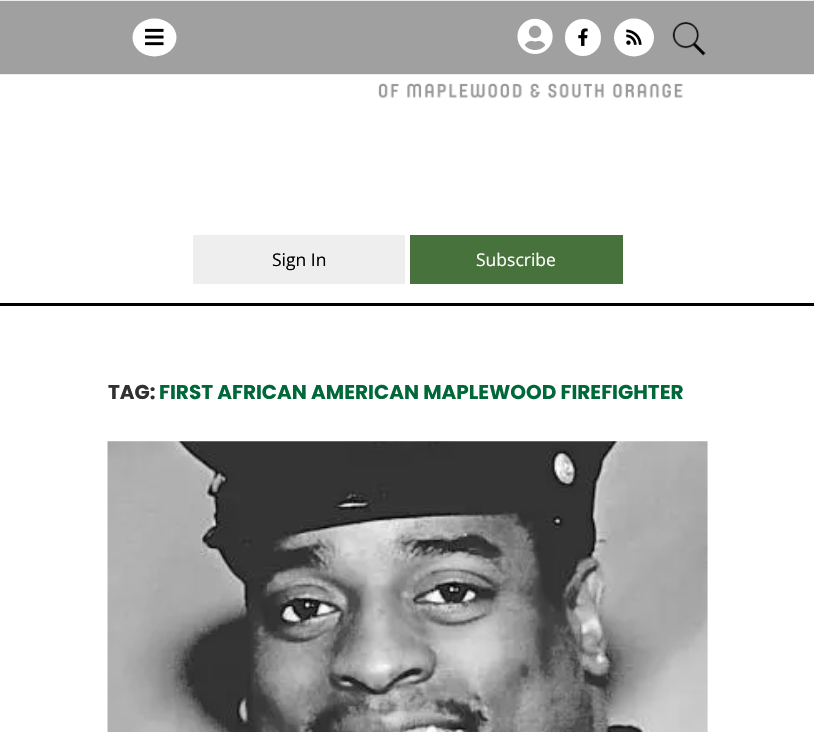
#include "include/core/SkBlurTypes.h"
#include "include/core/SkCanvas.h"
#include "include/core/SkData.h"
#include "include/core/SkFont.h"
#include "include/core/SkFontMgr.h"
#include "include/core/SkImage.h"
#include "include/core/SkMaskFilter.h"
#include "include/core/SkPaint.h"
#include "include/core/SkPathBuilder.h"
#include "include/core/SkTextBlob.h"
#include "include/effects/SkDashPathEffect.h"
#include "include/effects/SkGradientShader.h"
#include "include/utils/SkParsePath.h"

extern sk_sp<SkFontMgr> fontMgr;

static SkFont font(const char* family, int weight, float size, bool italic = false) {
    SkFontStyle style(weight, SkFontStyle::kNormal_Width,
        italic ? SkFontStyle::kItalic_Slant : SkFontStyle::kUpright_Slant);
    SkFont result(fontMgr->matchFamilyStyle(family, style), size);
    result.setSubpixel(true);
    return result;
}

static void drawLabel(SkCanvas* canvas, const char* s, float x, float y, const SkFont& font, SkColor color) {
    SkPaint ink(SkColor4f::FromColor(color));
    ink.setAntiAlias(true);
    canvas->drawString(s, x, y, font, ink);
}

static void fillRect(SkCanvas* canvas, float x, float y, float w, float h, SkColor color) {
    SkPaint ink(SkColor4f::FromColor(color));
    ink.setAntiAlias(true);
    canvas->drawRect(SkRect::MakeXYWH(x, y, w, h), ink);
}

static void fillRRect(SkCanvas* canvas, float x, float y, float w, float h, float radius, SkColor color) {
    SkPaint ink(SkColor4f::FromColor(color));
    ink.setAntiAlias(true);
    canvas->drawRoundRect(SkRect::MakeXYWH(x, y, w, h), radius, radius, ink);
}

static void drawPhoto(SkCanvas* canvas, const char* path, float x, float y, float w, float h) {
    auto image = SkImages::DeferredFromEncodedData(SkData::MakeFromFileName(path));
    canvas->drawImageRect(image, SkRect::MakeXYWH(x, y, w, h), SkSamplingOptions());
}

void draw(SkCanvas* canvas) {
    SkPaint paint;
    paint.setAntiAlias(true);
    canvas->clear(0xFFFFFFFF);
    fillRect(canvas, 0, 1, 814, 73, 0xFFA0A0A0);
    fillRect(canvas, 0, 0, 814, 1, 0xFFECECEC);
    fillRect(canvas, 0, 74, 814, 1, 0xFFECECEC);
    paint.setColor(0xFFFFFFFF);
    canvas->drawOval(SkRect::MakeXYWH(132.5f, 18.5f, 44, 38), paint);
    drawPhoto(canvas, "assets/img1.png", 145, 28, 19, 18);
    drawPhoto(canvas, "assets/img2.png", 517, 18, 36, 36);
    fillRRect(canvas, 565, 19, 36, 37, 18, 0xFFFFFFFF);
    drawPhoto(canvas, "assets/img3.png", 578, 28, 10, 18);
    canvas->drawOval(SkRect::MakeXYWH(614, 18.5f, 40, 38), paint);
    drawPhoto(canvas, "assets/img4.png", 626, 29, 16, 16);
    drawPhoto(canvas, "assets/img5.png", 672, 21, 34, 35);
    drawPhoto(canvas, "assets/img6.png", 122, 75, 586, 23);
    fillRect(canvas, 0, 303, 814, 3, 0xFF000000);
    fillRect(canvas, 193, 235, 212, 49, 0xFFEEEEEE);
    SkFont font1 = font("Open Sans", 400, 17.5f);
    drawLabel(canvas, "Sign In", 272, 266, font1, 0xFF000000);
    fillRect(canvas, 410, 235, 213, 49, 0xFF48723B);
    drawLabel(canvas, "Subscribe", 476, 266, font1, 0xFFFFFFFF);
    SkFont font2 = font("Poppins", 700, 20);
    drawLabel(canvas, "TAG:", 108, 399, font2, 0xFF313131);
    drawLabel(canvas, "FIRST AFRICAN AMERICAN MAPLEWOOD FIREFIGHTER", 159, 399, font2, 0xFF006838);
    fillRect(canvas, 108, 441, 600, 291, 0xFFF5F5F5);
    drawPhoto(canvas, "assets/img7.png", 107, 441, 601, 291);
}
